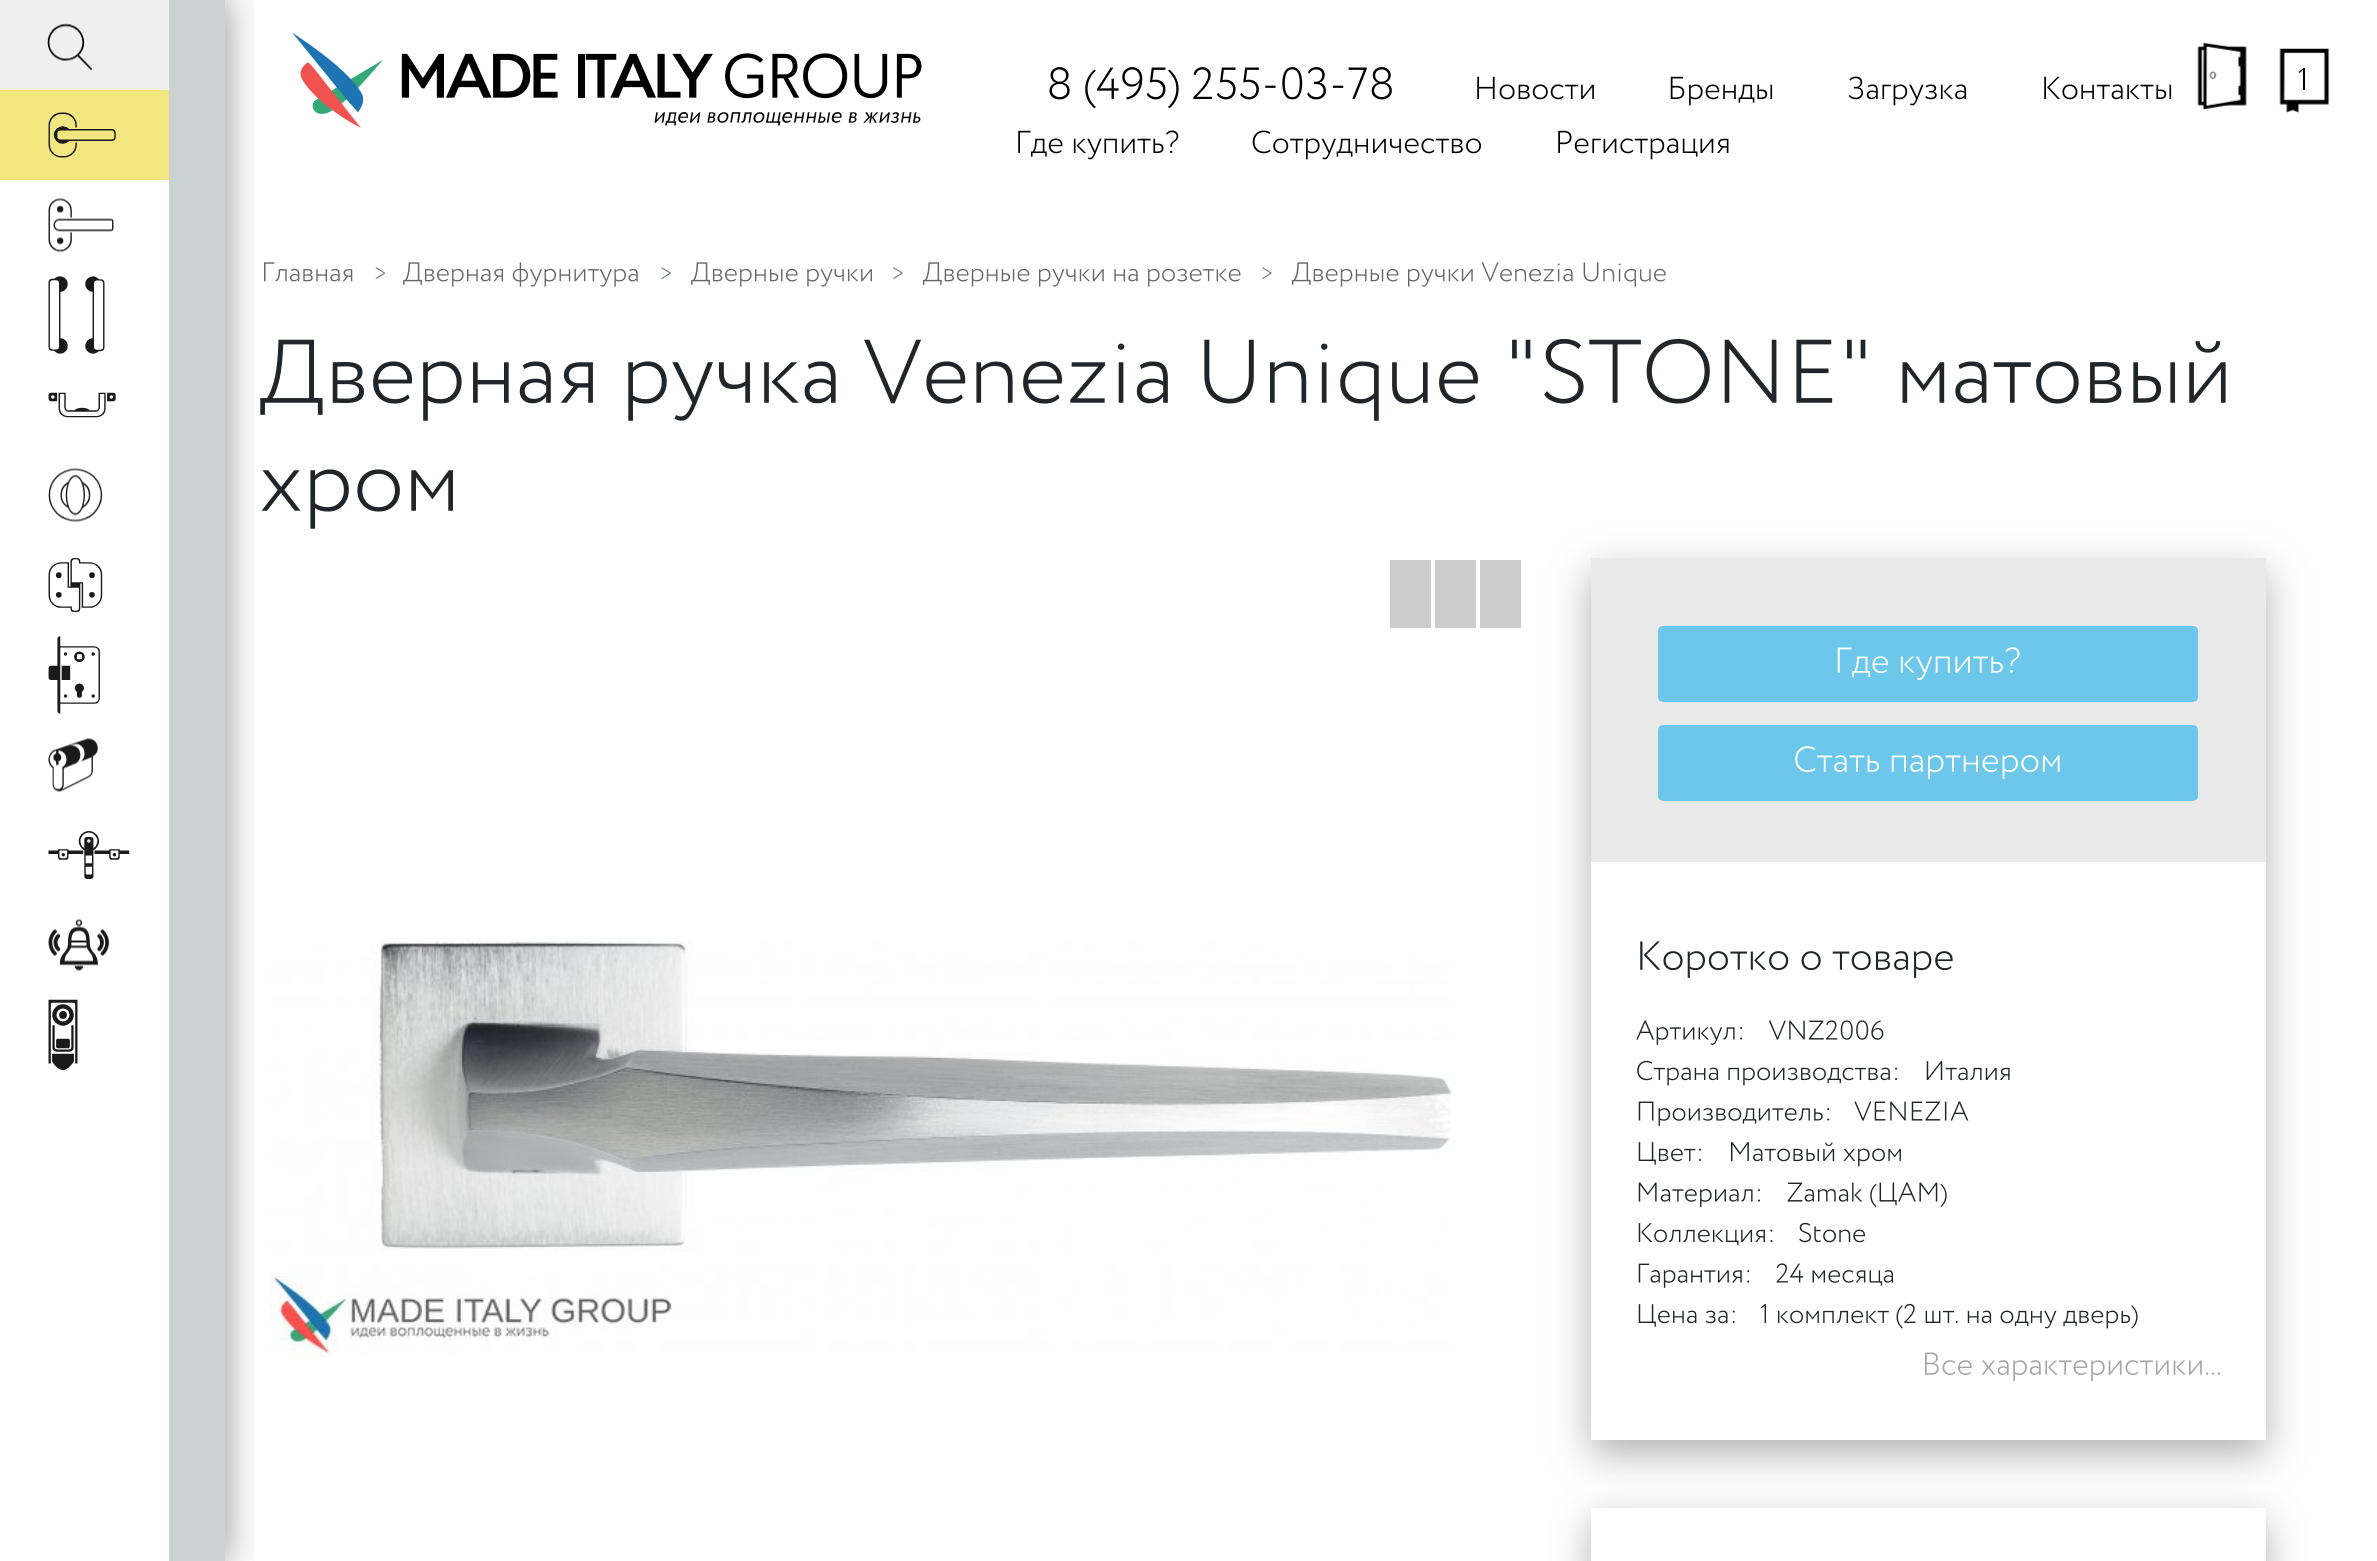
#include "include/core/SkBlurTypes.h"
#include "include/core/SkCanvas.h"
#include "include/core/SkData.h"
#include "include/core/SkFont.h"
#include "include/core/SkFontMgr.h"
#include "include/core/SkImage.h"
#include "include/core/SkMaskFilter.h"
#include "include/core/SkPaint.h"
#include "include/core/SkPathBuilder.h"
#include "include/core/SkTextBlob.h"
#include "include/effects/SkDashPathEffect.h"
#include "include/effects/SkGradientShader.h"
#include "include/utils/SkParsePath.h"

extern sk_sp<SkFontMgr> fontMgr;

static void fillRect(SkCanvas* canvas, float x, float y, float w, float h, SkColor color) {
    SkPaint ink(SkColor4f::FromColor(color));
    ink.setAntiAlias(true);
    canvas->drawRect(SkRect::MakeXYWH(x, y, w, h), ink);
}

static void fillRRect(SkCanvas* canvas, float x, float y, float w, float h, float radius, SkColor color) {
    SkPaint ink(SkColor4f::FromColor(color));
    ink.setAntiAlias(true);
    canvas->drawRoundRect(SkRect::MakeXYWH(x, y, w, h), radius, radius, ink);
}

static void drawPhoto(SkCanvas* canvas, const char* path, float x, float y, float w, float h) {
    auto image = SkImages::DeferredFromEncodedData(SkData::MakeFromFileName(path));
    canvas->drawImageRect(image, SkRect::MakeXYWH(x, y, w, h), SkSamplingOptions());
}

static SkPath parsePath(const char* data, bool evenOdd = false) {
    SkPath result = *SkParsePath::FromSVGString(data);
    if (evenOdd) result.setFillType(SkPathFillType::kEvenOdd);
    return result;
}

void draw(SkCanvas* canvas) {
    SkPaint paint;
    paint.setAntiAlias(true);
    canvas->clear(0xFFFFFFFF);
    drawPhoto(canvas, "assets/img24.png", 264, 262, 89, 20);
    drawPhoto(canvas, "assets/img32.png", 260, 338, 1966, 83);
    drawPhoto(canvas, "assets/img33.png", 261, 469, 192, 60);
    drawPhoto(canvas, "assets/img54.png", 270, 939, 1181, 418);
    canvas->save();
    canvas->clipRect(SkRect::MakeXYWH(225, 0, 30, 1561));
    paint.setColor(0x66000000);
    paint.setMaskFilter(SkMaskFilter::MakeBlur(kNormal_SkBlurStyle, 17));
    canvas->drawRect(SkRect::MakeXYWH(-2, -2, 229, 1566), paint);
    paint.setMaskFilter(nullptr);
    canvas->restore();
    fillRect(canvas, 0, 0, 169, 90, 0xFFEFEFEF);
    drawPhoto(canvas, "assets/img1.png", 47, 23, 45, 48);
    fillRect(canvas, 0, 90, 169, 90, 0xFFF1E67F);
    drawPhoto(canvas, "assets/img2.png", 48, 112, 68, 46);
    drawPhoto(canvas, "assets/img3.png", 48, 198, 66, 54);
    drawPhoto(canvas, "assets/img4.png", 48, 276, 57, 78);
    drawPhoto(canvas, "assets/img5.png", 48, 392, 68, 26);
    drawPhoto(canvas, "assets/img6.png", 48, 468, 55, 54);
    drawPhoto(canvas, "assets/img7.png", 48, 558, 55, 54);
    drawPhoto(canvas, "assets/img8.png", 48, 636, 52, 78);
    drawPhoto(canvas, "assets/img9.png", 48, 738, 50, 54);
    drawPhoto(canvas, "assets/img10.png", 48, 831, 82, 48);
    drawPhoto(canvas, "assets/img11.png", 48, 919, 61, 52);
    drawPhoto(canvas, "assets/img12.png", 48, 999, 30, 72);
    fillRect(canvas, 169, 0, 56, 1561, 0xFFCAD2D4);
    drawPhoto(canvas, "assets/img13.png", 292, 32, 630, 96);
    drawPhoto(canvas, "assets/img14.png", 1049, 67, 343, 42);
    drawPhoto(canvas, "assets/img15.png", 1477, 76, 117, 24);
    drawPhoto(canvas, "assets/img16.png", 1670, 76, 103, 30);
    drawPhoto(canvas, "assets/img17.png", 1848, 76, 119, 30);
    drawPhoto(canvas, "assets/img18.png", 2044, 76, 128, 24);
    drawPhoto(canvas, "assets/img19.png", 1018, 130, 161, 30);
    drawPhoto(canvas, "assets/img20.png", 1252, 130, 229, 30);
    drawPhoto(canvas, "assets/img21.png", 1558, 130, 171, 30);
    drawPhoto(canvas, "assets/img22.png", 2197, 42, 50, 68);
    drawPhoto(canvas, "assets/img23.png", 2279, 48, 51, 65);
    paint.setColor(0xFF000000);
    canvas->drawPath(parsePath("M2298.5 72L2303.5 68H2305V90H2303V70L2299.5 73Z"), paint);
    drawPhoto(canvas, "assets/img25.png", 375, 267, 11, 13);
    drawPhoto(canvas, "assets/img26.png", 403, 262, 235, 25);
    drawPhoto(canvas, "assets/img27.png", 661, 267, 10, 13);
    drawPhoto(canvas, "assets/img28.png", 691, 262, 181, 25);
    drawPhoto(canvas, "assets/img29.png", 893, 267, 10, 13);
    drawPhoto(canvas, "assets/img30.png", 922, 262, 319, 25);
    drawPhoto(canvas, "assets/img29.png", 1262, 267, 10, 13);
    drawPhoto(canvas, "assets/img31.png", 1291, 262, 375, 25);
    fillRect(canvas, 1390, 560, 41, 68, 0xFFCCCCCC);
    fillRect(canvas, 1435, 560, 41, 68, 0xFFCCCCCC);
    fillRect(canvas, 1480, 560, 41, 68, 0xFFCCCCCC);
    paint.setColor(0x4D000000);
    paint.setMaskFilter(SkMaskFilter::MakeBlur(kNormal_SkBlurStyle, 18));
    canvas->drawRect(SkRect::MakeXYWH(1591, 572, 675, 882), paint);
    paint.setMaskFilter(nullptr);
    fillRect(canvas, 1591, 862, 675, 578, 0xFFFFFFFF);
    fillRect(canvas, 1591, 558, 675, 304, 0xFFEAEAEA);
    fillRRect(canvas, 1658, 626, 540, 76, 5, 0xFF6CC7EA);
    drawPhoto(canvas, "assets/img34.png", 1837, 647, 183, 33);
    fillRRect(canvas, 1658, 725, 540, 76, 5, 0xFF6CC7EA);
    drawPhoto(canvas, "assets/img35.png", 1795, 746, 265, 33);
    drawPhoto(canvas, "assets/img36.png", 1640, 941, 313, 37);
    drawPhoto(canvas, "assets/img37.png", 1636, 1020, 107, 25);
    drawPhoto(canvas, "assets/img38.png", 1768, 1020, 116, 20);
    drawPhoto(canvas, "assets/img39.png", 1637, 1060, 261, 26);
    drawPhoto(canvas, "assets/img40.png", 1926, 1061, 84, 20);
    drawPhoto(canvas, "assets/img41.png", 1638, 1101, 192, 25);
    drawPhoto(canvas, "assets/img42.png", 1854, 1101, 115, 20);
    drawPhoto(canvas, "assets/img43.png", 1638, 1142, 63, 23);
    drawPhoto(canvas, "assets/img44.png", 1731, 1142, 170, 25);
    drawPhoto(canvas, "assets/img45.png", 1638, 1182, 122, 25);
    drawPhoto(canvas, "assets/img46.png", 1787, 1182, 160, 25);
    drawPhoto(canvas, "assets/img47.png", 1638, 1223, 135, 23);
    drawPhoto(canvas, "assets/img48.png", 1799, 1222, 66, 21);
    drawPhoto(canvas, "assets/img49.png", 1638, 1263, 112, 25);
    drawPhoto(canvas, "assets/img50.png", 1776, 1263, 118, 23);
    drawPhoto(canvas, "assets/img51.png", 1638, 1304, 97, 23);
    drawPhoto(canvas, "assets/img52.png", 1760, 1303, 378, 26);
    drawPhoto(canvas, "assets/img53.png", 1925, 1352, 295, 30);
    paint.setMaskFilter(SkMaskFilter::MakeBlur(kNormal_SkBlurStyle, 18));
    canvas->drawRect(SkRect::MakeXYWH(1591, 1521, 675, 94), paint);
    paint.setMaskFilter(nullptr);
    fillRect(canvas, 1591, 1508, 675, 53, 0xFFFFFFFF);
}
